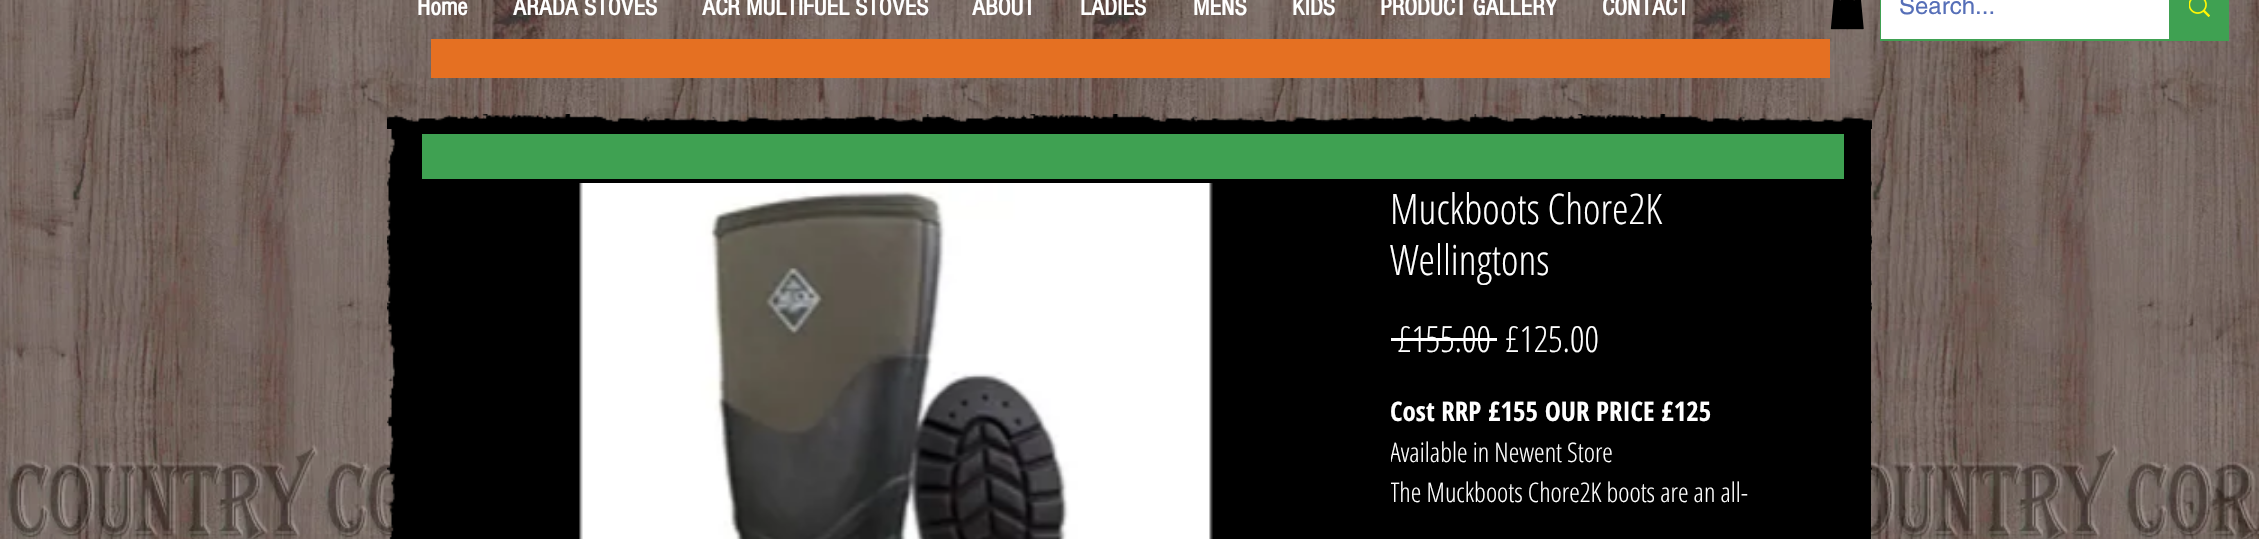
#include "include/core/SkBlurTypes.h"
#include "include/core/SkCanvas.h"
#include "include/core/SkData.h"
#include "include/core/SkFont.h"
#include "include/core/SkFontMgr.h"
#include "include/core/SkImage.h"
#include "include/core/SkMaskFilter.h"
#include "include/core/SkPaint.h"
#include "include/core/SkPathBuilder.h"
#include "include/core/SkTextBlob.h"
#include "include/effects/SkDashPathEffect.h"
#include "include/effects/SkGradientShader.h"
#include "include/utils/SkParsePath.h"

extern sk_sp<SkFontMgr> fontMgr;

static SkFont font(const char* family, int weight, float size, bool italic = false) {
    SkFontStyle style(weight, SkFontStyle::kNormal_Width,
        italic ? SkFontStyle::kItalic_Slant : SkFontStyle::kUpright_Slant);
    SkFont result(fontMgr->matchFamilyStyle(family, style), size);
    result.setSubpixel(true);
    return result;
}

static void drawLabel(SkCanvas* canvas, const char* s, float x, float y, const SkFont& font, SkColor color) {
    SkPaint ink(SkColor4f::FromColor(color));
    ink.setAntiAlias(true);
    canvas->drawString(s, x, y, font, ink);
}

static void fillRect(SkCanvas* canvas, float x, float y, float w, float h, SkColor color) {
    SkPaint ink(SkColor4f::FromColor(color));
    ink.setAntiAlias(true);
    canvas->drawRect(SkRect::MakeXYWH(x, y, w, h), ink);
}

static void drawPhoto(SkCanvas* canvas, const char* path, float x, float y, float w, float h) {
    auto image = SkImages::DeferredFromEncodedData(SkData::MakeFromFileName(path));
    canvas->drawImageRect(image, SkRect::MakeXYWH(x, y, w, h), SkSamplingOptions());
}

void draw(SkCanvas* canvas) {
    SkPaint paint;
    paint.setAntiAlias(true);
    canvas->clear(0xFFFFFFFF);
    drawPhoto(canvas, "assets/img1.png", 0, 0, 2259, 539);
    SkFont font1 = font("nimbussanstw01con", 700, 25.5f);
    drawLabel(canvas, "Home", 417, 15, font1, 0xFFFFFFFF);
    drawLabel(canvas, "ARADA STOVES", 513, 15, font1, 0xFFFFFFFF);
    drawLabel(canvas, "ACR MULTIFUEL STOVES", 702, 15, font1, 0xFFFFFFFF);
    drawLabel(canvas, "ABOUT", 972, 15, font1, 0xFFFFFFFF);
    drawLabel(canvas, "LADIES", 1080, 15, font1, 0xFFFFFFFF);
    drawLabel(canvas, "MENS", 1193, 15, font1, 0xFFFFFFFF);
    drawLabel(canvas, "KIDS", 1292, 15, font1, 0xFFFFFFFF);
    drawLabel(canvas, "PRODUCT GALLERY", 1380, 15, font1, 0xFFFFFFFF);
    drawLabel(canvas, "CONTACT", 1602, 15, font1, 0xFFFFFFFF);
    drawPhoto(canvas, "assets/img2.png", 1830, 0, 34, 30);
    paint.setStroke(true);
    paint.setStrokeWidth(2);
    paint.setColor(0xFF3FA152);
    canvas->drawRect(SkRect::MakeXYWH(1881, -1, 347, 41), paint);
    fillRect(canvas, 1881, 0, 288, 39, 0xFFFFFFFF);
    SkFont font2 = font("helvetica", 400, 24);
    drawLabel(canvas, "Search...", 1899, 14, font2, 0xFF566FB8);
    fillRect(canvas, 2169, 0, 58, 39, 0xFF3FA152);
    drawPhoto(canvas, "assets/img3.png", 2189, 0, 21, 17);
    fillRect(canvas, 431, 39, 1399, 39, 0xFFE57022);
    drawPhoto(canvas, "assets/img4.png", 387, 114, 1485, 15);
    drawPhoto(canvas, "assets/img5.png", 387, 129, 12, 410);
    drawPhoto(canvas, "assets/img6.png", 1871, 172, 1, 334);
    fillRect(canvas, 399, 129, 1472, 410, 0xFF000000);
    fillRect(canvas, 422, 134, 1422, 45, 0xFF3FA152);
    drawPhoto(canvas, "assets/img7.png", 579, 183, 634, 356);
    SkFont font3 = font("Open Sans Condensed", 300, 42);
    drawLabel(canvas, "Muckboots Chore2K", 1390, 224, font3, 0xFFFFFFFF);
    drawLabel(canvas, "Wellingtons", 1390, 275, font3, 0xFFFFFFFF);
    SkFont font4 = font("Open Sans Condensed", 300, 36);
    drawLabel(canvas, "£155.00", 1397, 352, font4, 0xFFFFFFFF);
    fillRect(canvas, 1391, 338, 106, 3, 0xFFFFFFFF);
    drawLabel(canvas, "£125.00", 1505, 352, font4, 0xFFFFFFFF);
    canvas->save();
    canvas->clipRect(SkRect::MakeXYWH(1391, 392, 420, 121));
    SkFont font5 = font("Open Sans Condensed", 700, 27);
    drawLabel(canvas, "Cost RRP £155 OUR PRICE £125", 1390, 421, font5, 0xFFFFFFFF);
    SkFont font6 = font("Open Sans Condensed", 300, 27);
    drawLabel(canvas, "Available in Newent Store", 1390, 462, font6, 0xFFFFFFFF);
    drawLabel(canvas, "The Muckboots Chore2K boots are an all-", 1390, 502, font6, 0xFFFFFFFF);
    canvas->restore();
}
